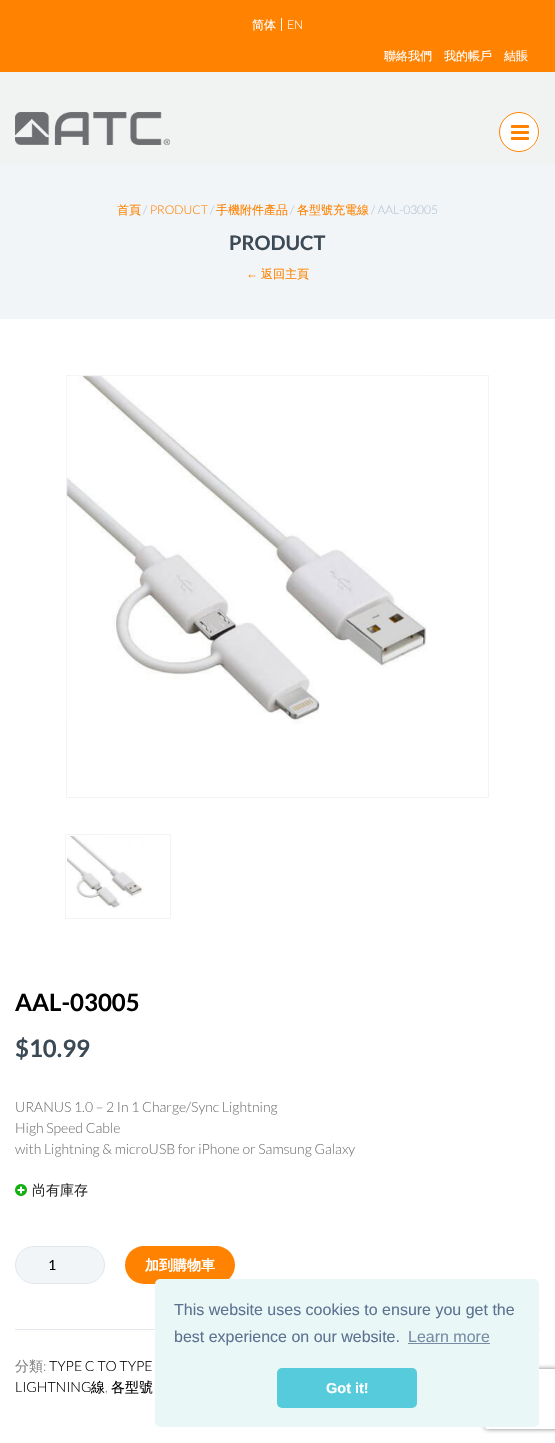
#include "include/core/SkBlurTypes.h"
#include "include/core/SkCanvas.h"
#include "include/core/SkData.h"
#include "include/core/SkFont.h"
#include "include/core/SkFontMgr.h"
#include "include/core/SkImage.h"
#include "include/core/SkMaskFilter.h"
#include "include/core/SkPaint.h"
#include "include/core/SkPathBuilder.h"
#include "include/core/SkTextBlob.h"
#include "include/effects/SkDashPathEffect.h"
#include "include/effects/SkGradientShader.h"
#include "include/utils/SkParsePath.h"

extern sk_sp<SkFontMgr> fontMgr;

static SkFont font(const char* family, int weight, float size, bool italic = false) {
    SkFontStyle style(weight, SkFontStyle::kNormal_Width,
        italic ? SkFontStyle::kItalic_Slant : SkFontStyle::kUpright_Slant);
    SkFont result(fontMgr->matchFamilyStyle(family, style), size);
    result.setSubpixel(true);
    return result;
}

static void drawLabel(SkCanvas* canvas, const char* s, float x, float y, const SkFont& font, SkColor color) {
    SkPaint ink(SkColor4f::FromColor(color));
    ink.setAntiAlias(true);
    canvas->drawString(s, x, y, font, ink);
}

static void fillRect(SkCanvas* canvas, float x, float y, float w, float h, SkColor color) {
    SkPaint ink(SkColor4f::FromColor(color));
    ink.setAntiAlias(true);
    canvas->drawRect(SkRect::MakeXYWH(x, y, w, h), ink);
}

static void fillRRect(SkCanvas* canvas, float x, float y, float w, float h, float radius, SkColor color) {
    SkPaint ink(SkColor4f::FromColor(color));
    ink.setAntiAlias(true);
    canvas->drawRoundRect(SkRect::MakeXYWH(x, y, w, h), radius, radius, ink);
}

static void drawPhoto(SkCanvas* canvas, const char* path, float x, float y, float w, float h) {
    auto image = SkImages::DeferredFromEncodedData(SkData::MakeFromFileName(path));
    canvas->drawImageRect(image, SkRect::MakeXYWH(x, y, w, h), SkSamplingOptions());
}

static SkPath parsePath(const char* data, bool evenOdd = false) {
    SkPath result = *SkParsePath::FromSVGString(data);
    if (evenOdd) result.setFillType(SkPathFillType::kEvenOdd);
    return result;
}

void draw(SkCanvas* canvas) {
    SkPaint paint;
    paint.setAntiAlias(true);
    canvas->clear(0xFFFFFFFF);
    fillRect(canvas, 0, 72, 555, 93, 0xFFF1F2F2);
    fillRect(canvas, 0, 0, 555, 72, 0xFFFF8200);
    fillRect(canvas, 281, 18, 1, 13, 0xFFFFFFFF);
    SkFont font1 = font("WenQuanYi Zen Hei", 500, 12);
    drawLabel(canvas, "简体", 252, 29, font1, 0xFFFFFFFF);
    SkFont font2 = font("Lato", 300, 12);
    drawLabel(canvas, "EN", 287, 29, font2, 0xFFFFFFFF);
    drawLabel(canvas, "聯絡我們", 384, 60, font1, 0xFFFFFFFF);
    drawLabel(canvas, "我的帳戶", 444, 60, font1, 0xFFFFFFFF);
    drawLabel(canvas, "結賬", 504, 60, font1, 0xFFFFFFFF);
    drawPhoto(canvas, "assets/img1.png", 15, 112, 155, 33);
    paint.setColor(0xFFFFFFFF);
    canvas->drawCircle(520, 132, 20, paint);
    drawPhoto(canvas, "assets/img2.png", 511, 125, 18, 15);
    paint.setStroke(true);
    paint.setStrokeWidth(1);
    paint.setColor(0xFFFF8200);
    canvas->drawCircle(519, 132, 19.5f, paint);
    fillRect(canvas, 0, 165, 555, 154, 0xFFF2F5F8);
    drawLabel(canvas, "首頁", 117, 214, font1, 0xFFFF8200);
    drawLabel(canvas, "/", 143, 214, font2, 0xFFB5C4D5);
    drawLabel(canvas, "PRODUCT", 150, 214, font2, 0xFFFF8200);
    drawLabel(canvas, "/", 210, 214, font2, 0xFFB5C4D5);
    drawLabel(canvas, "手機附件產品", 216, 214, font1, 0xFFFF8200);
    drawLabel(canvas, "/", 290, 214, font2, 0xFFB5C4D5);
    drawLabel(canvas, "各型號充電線", 297, 214, font1, 0xFFFF8200);
    drawLabel(canvas, "/ AAL-03005", 371, 214, font2, 0xFFB5C4D5);
    SkFont font3 = font("Lato", 700, 20);
    drawLabel(canvas, "PRODUCT", 229, 250, font3, 0xFF3C4A55);
    SkFont font4 = font("Liberation Sans", 400, 12);
    drawLabel(canvas, "←", 246, 278, font4, 0xFFFF8200);
    drawLabel(canvas, "返回主頁", 261, 278, font1, 0xFFFF8200);
    paint.setColor(0xFFF2F5F8);
    canvas->drawRect(SkRect::MakeXYWH(66.5f, 375.5f, 422, 422), paint);
    drawPhoto(canvas, "assets/img3.png", 66, 375, 361, 349);
    canvas->drawRect(SkRect::MakeXYWH(65.5f, 834.5f, 105, 84), paint);
    drawPhoto(canvas, "assets/img4.png", 67, 836, 77, 73);
    SkFont font5 = font("Lato", 700, 24);
    drawLabel(canvas, "AAL-03005", 15, 1011, font5, 0xFF000000);
    drawLabel(canvas, "$10.99", 15, 1057, font5, 0xFF3C4A55);
    SkFont font6 = font("Lato", 300, 14);
    drawLabel(canvas, "URANUS 1.0 – 2 In 1 Charge/Sync Lightning", 15, 1112, font6, 0xFF767676);
    drawLabel(canvas, "High Speed Cable", 15, 1133, font6, 0xFF767676);
    drawLabel(canvas, "with Lightning & microUSB for iPhone or Samsung Galaxy", 15, 1154, font6, 0xFF767676);
    drawPhoto(canvas, "assets/img5.png", 15, 1184, 12, 12);
    SkFont font7 = font("WenQuanYi Zen Hei", 500, 14);
    drawLabel(canvas, "尚有庫存", 32, 1195, font7, 0xFF2B2B2B);
    paint.setStroke(false);
    canvas->drawRoundRect(SkRect::MakeXYWH(15.5f, 1246.5f, 89, 37), 18.5f, 18.5f, paint);
    paint.setStroke(true);
    paint.setColor(0xFFE2E7EC);
    canvas->drawRoundRect(SkRect::MakeXYWH(15.5f, 1246.5f, 89, 37), 18.5f, 18.5f, paint);
    SkFont font8 = font("Lato", 400, 14);
    drawLabel(canvas, "1", 48, 1270, font8, 0xFF000000);
    fillRRect(canvas, 125, 1246, 110, 38, 19, 0xFFFF8200);
    SkFont font9 = font("WenQuanYi Zen Hei", 700, 14);
    drawLabel(canvas, "加到購物車", 145, 1270, font9, 0xFFFFFFFF);
    fillRect(canvas, 15, 1329, 525, 1, 0xFFE4E8ED);
    drawLabel(canvas, "分類", 15, 1371, font7, 0xFF818181);
    drawLabel(canvas, ":", 43, 1371, font6, 0xFF818181);
    drawLabel(canvas, "TYPE C TO TYPE", 49, 1371, font6, 0xFF000000);
    drawLabel(canvas, "LIGHTNING", 15, 1392, font6, 0xFF000000);
    drawLabel(canvas, "線", 91, 1392, font7, 0xFF000000);
    drawLabel(canvas, ",", 105, 1392, font6, 0xFF818181);
    drawLabel(canvas, "各型號", 111, 1392, font7, 0xFF000000);
    canvas->save();
    canvas->clipPath(parsePath("M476 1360H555V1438H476ZM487 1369H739C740 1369 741 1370 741 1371V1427C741 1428 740 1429 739 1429H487C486 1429 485 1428 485 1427V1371C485 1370 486 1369 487 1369Z", true), true);
    paint.setStroke(false);
    paint.setColor(0xFF808080);
    paint.setMaskFilter(SkMaskFilter::MakeBlur(kNormal_SkBlurStyle, 2.5f));
    canvas->drawRoundRect(SkRect::MakeXYWH(485, 1369, 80, 60), 2, 2, paint);
    paint.setMaskFilter(nullptr);
    canvas->restore();
    fillRRect(canvas, 155, 1279, 384, 148, 5, 0xFFEAF7F7);
    SkFont font10 = font("Liberation Sans", 400, 16);
    drawLabel(canvas, "This website uses cookies to ensure you get the", 174, 1315, font10, 0xFF5C7291);
    drawLabel(canvas, "best experience on our website.", 174, 1342, font10, 0xFF5C7291);
    drawLabel(canvas, "Learn more", 408, 1342, font10, 0xFF788DA5);
    fillRect(canvas, 408, 1343, 82, 1, 0xFF788DA5);
    fillRRect(canvas, 277, 1368, 140, 40, 5, 0xFF56CBDB);
    SkFont font11 = font("Liberation Sans", 700, 14.5f);
    drawLabel(canvas, "Got it!", 326, 1393, font11, 0xFFFFFFFF);
}
